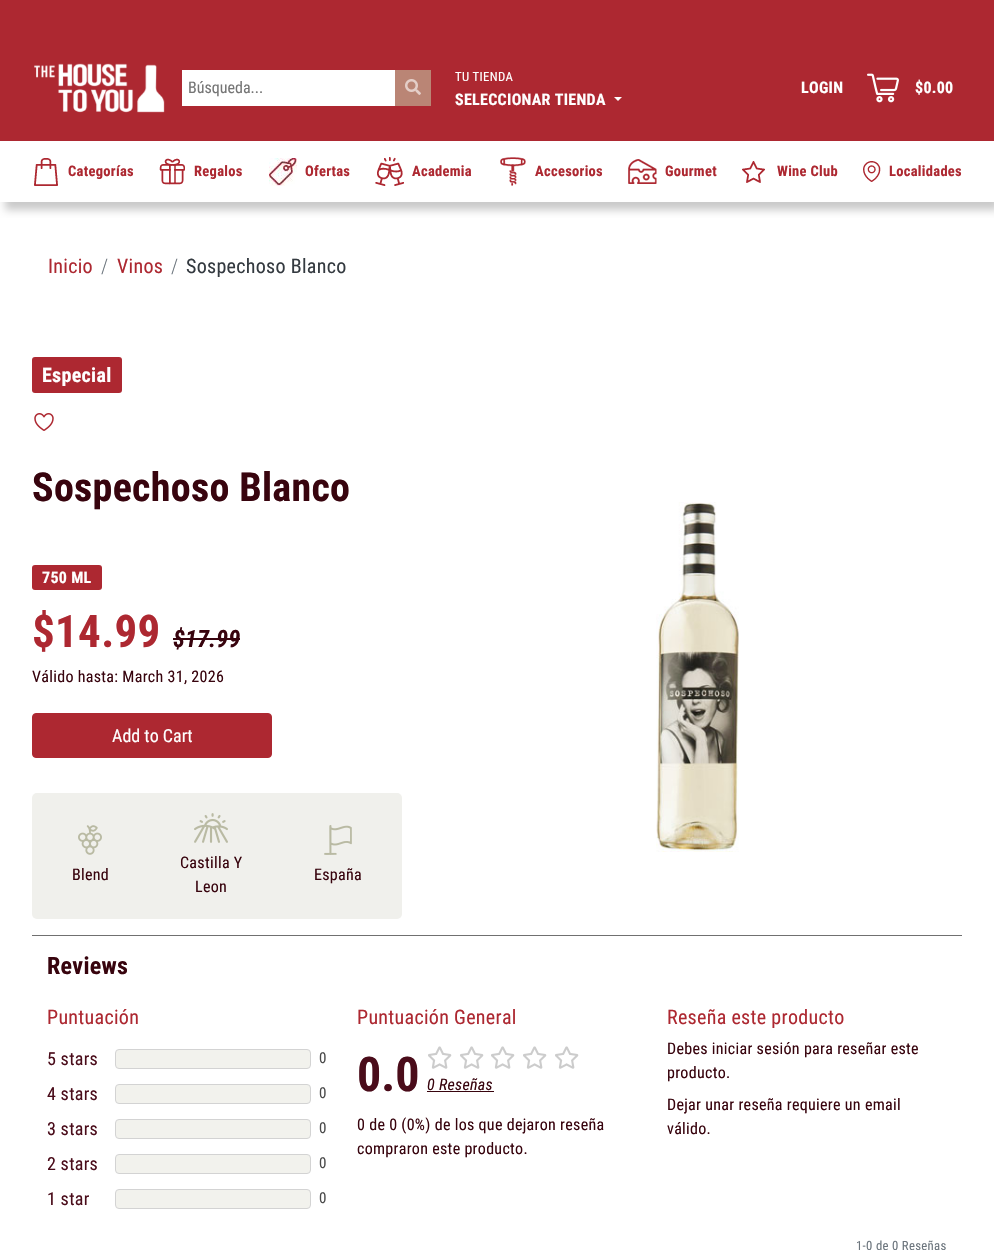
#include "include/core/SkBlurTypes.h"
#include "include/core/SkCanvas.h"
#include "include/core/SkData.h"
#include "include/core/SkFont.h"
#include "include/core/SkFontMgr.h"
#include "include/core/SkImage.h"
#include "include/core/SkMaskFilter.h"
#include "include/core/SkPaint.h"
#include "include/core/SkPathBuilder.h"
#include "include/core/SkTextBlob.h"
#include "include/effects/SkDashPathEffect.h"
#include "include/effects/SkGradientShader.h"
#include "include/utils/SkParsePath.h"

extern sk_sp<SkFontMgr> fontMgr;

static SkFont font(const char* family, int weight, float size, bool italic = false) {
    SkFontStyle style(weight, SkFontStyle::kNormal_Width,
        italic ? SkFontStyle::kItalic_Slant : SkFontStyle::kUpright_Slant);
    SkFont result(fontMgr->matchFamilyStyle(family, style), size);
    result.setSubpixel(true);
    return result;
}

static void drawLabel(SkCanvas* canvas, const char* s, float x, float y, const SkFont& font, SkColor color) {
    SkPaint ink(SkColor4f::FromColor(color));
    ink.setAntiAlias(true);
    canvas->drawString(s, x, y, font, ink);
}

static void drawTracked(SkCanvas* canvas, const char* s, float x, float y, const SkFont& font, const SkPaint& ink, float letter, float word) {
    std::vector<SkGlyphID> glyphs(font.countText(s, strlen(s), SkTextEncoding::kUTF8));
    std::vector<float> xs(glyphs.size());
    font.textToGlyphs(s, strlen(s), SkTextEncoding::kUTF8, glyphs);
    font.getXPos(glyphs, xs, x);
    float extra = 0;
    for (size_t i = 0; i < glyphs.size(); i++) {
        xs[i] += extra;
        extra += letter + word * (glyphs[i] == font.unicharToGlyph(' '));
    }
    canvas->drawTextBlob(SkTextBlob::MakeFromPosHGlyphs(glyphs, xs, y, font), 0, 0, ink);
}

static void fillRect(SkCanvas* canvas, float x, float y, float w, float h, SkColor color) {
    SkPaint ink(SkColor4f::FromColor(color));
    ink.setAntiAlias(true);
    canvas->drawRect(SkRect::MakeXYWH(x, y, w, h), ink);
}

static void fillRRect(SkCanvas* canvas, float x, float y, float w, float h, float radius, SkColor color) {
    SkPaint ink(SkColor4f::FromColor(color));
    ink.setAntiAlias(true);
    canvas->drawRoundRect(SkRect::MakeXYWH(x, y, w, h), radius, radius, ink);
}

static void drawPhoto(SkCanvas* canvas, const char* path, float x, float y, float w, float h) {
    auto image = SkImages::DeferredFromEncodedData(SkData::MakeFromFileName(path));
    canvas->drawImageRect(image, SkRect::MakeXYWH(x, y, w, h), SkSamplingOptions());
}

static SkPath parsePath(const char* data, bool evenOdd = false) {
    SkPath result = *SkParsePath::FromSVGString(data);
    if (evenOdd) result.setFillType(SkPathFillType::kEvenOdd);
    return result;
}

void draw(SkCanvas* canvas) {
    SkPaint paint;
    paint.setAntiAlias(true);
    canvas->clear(0xFFFFFFFF);
    fillRect(canvas, 0, 0, 994, 141, 0xFFAD2831);
    drawPhoto(canvas, "assets/img1.png", 34, 63, 131, 50);
    fillRect(canvas, 182, 70, 213, 36, 0xFFFFFFFF);
    SkFont font1 = font("Roboto Condensed", 400, 16);
    drawLabel(canvas, "Búsqueda...", 188, 93, font1, 0xFF757575);
    fillRect(canvas, 395, 70, 36, 36, 0xFFBA8575);
    drawPhoto(canvas, "assets/img2.png", 405, 79, 16, 16);
    SkFont font2 = font("Roboto Condensed", 400, 12.75f);
    paint.setColor(0xFFFFFFFF);
    drawTracked(canvas, "TU TIENDA", 455, 81, font2, paint, 0.3f, 0);
    SkFont font3 = font("Roboto Condensed", 700, 16);
    drawTracked(canvas, "SELECCIONAR TIENDA", 455, 105, font3, paint, 0.3f, 0);
    canvas->drawPath(parsePath("M614 97H622L618 101Z"), paint);
    drawTracked(canvas, "LOGIN", 801, 93, font3, paint, 0.3f, 0);
    drawPhoto(canvas, "assets/img3.png", 867, 73, 32, 30);
    drawTracked(canvas, "$0.00", 915, 93, font3, paint, 0.3f, 0);
    canvas->save();
    canvas->clipRect(SkRect::MakeXYWH(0, 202, 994, 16));
    paint.setColor(0xFFCACACA);
    paint.setMaskFilter(SkMaskFilter::MakeBlur(kNormal_SkBlurStyle, 4));
    canvas->drawRect(SkRect::MakeXYWH(5, 149, 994, 61), paint);
    paint.setMaskFilter(nullptr);
    canvas->restore();
    drawPhoto(canvas, "assets/img4.png", 34, 158, 24, 28);
    SkFont font4 = font("Roboto Condensed", 700, 14.5f);
    paint.setColor(0xFFAD2831);
    drawTracked(canvas, "Categorías", 68, 176, font4, paint, 0.3f, 0);
    drawPhoto(canvas, "assets/img5.png", 159, 158, 26, 27);
    drawTracked(canvas, "Regalos", 194, 176, font4, paint, 0.3f, 0);
    drawPhoto(canvas, "assets/img6.png", 269, 158, 28, 28);
    drawTracked(canvas, "Ofertas", 305, 176, font4, paint, 0.3f, 0);
    drawPhoto(canvas, "assets/img7.png", 375, 157, 29, 29);
    drawTracked(canvas, "Academia", 412, 176, font4, paint, 0.3f, 0);
    drawPhoto(canvas, "assets/img8.png", 500, 157, 26, 29);
    drawTracked(canvas, "Accesorios", 535, 176, font4, paint, 0.3f, 0);
    drawPhoto(canvas, "assets/img9.png", 628, 159, 29, 25);
    drawTracked(canvas, "Gourmet", 665, 176, font4, paint, 0.3f, 0);
    drawPhoto(canvas, "assets/img10.png", 742, 161, 23, 22);
    drawTracked(canvas, "Wine Club", 777, 176, font4, paint, 0.3f, 0);
    drawPhoto(canvas, "assets/img11.png", 863, 161, 18, 21);
    drawTracked(canvas, "Localidades", 889, 176, font4, paint, 0.3f, 0);
    SkFont font5 = font("Roboto Condensed", 400, 20);
    drawTracked(canvas, "Inicio", 48, 273, font5, paint, 0.3f, 0);
    SkFont font6 = font("Roboto Condensed", 300, 20);
    paint.setColor(0xFF6C757D);
    drawTracked(canvas, "/", 101, 273, font6, paint, 0.3f, 0);
    paint.setColor(0xFFAD2831);
    drawTracked(canvas, "Vinos", 117, 273, font5, paint, 0.3f, 0);
    paint.setColor(0xFF6C757D);
    drawTracked(canvas, "/", 171, 273, font6, paint, 0.3f, 0);
    paint.setColor(0xFF343A40);
    drawTracked(canvas, "Sospechoso Blanco", 186, 273, font5, paint, 0.3f, 0);
    fillRRect(canvas, 32, 357, 90, 36, 3, 0xFFAD2831);
    SkFont font7 = font("Roboto Condensed", 700, 20);
    paint.setColor(0xFFFFFFFF);
    drawTracked(canvas, "Especial", 42, 382, font7, paint, 0.3f, 0);
    drawPhoto(canvas, "assets/img12.png", 34, 413, 20, 18);
    SkFont font8 = font("Roboto Condensed", 700, 40);
    paint.setColor(0xFF38040E);
    drawTracked(canvas, "Sospechoso Blanco", 32, 501, font8, paint, 0.3f, 0);
    fillRRect(canvas, 32, 565, 70, 25, 3, 0xFFAD2831);
    paint.setColor(0xFFFFFFFF);
    drawTracked(canvas, "750 ML", 42, 583, font3, paint, 0.3f, 0);
    SkFont font9 = font("Roboto Condensed", 700, 45);
    paint.setColor(0xFFAD2831);
    drawTracked(canvas, "$14.99", 32, 647, font9, paint, 0.3f, 0);
    SkFont font10 = font("Roboto Condensed", 700, 24, true);
    paint.setColor(0xFF38040E);
    drawTracked(canvas, "$17.99", 173, 647, font10, paint, 0.3f, 0);
    fillRect(canvas, 173, 638, 67, 2, 0xFF38040E);
    drawTracked(canvas, "Válido hasta: March 31, 2026", 32, 682, font1, paint, 0.3f, 0);
    paint.setColor(0xFFAD2831);
    canvas->drawRoundRect(SkRect::MakeXYWH(32.5f, 713.5f, 239, 44), 3.5f, 3.5f, paint);
    paint.setStroke(true);
    paint.setStrokeWidth(1);
    canvas->drawRoundRect(SkRect::MakeXYWH(32.5f, 713.5f, 239, 44), 3.5f, 3.5f, paint);
    SkFont font11 = font("Roboto Condensed", 400, 18);
    drawLabel(canvas, "Add to Cart", 112, 742, font11, 0xFFFFFFFF);
    fillRRect(canvas, 32, 793, 370, 126, 5, 0xFFF0F0EC);
    drawPhoto(canvas, "assets/img13.png", 78, 825, 24, 30);
    paint.setStroke(false);
    paint.setColor(0xFF38040E);
    drawTracked(canvas, "Blend", 72, 880, font1, paint, 0.3f, 0);
    drawPhoto(canvas, "assets/img14.png", 194, 813, 34, 30);
    drawTracked(canvas, "Castilla Y", 180, 868, font1, paint, 0.3f, 0);
    drawTracked(canvas, "Leon", 195, 892, font1, paint, 0.3f, 0);
    drawPhoto(canvas, "assets/img15.png", 324, 825, 28, 30);
    drawTracked(canvas, "España", 314, 880, font1, paint, 0.3f, 0);
    drawPhoto(canvas, "assets/img16.png", 656, 502, 83, 350);
    fillRect(canvas, 32, 935, 930, 1, 0xFF707070);
    SkFont font12 = font("Roboto Condensed", 700, 24);
    drawTracked(canvas, "Reviews", 47, 974, font12, paint, 0.3f, 0);
    paint.setColor(0xFFAD2831);
    drawTracked(canvas, "Puntuación", 47, 1024, font5, paint, 0.3f, 0);
    paint.setColor(0xFF4A0C1A);
    drawTracked(canvas, "5 stars", 47, 1065, font11, paint, 0.3f, 0);
    paint.setColor(0xFFF2F2ED);
    canvas->drawRoundRect(SkRect::MakeXYWH(115.5f, 1049.5f, 195, 19), 3.5f, 3.5f, paint);
    paint.setStroke(true);
    paint.setColor(0xFFD3D3D3);
    canvas->drawRoundRect(SkRect::MakeXYWH(115.5f, 1049.5f, 195, 19), 3.5f, 3.5f, paint);
    SkFont font13 = font("Roboto Condensed", 400, 15);
    paint.setStroke(false);
    paint.setColor(0xFF4A4A4A);
    drawTracked(canvas, "0", 319, 1063, font13, paint, 0.3f, 0);
    paint.setColor(0xFF4A0C1A);
    drawTracked(canvas, "4 stars", 47, 1100, font11, paint, 0.3f, 0);
    paint.setColor(0xFFF2F2ED);
    canvas->drawRoundRect(SkRect::MakeXYWH(115.5f, 1084.5f, 195, 19), 3.5f, 3.5f, paint);
    paint.setStroke(true);
    paint.setColor(0xFFD3D3D3);
    canvas->drawRoundRect(SkRect::MakeXYWH(115.5f, 1084.5f, 195, 19), 3.5f, 3.5f, paint);
    paint.setStroke(false);
    paint.setColor(0xFF4A4A4A);
    drawTracked(canvas, "0", 319, 1098, font13, paint, 0.3f, 0);
    paint.setColor(0xFF4A0C1A);
    drawTracked(canvas, "3 stars", 47, 1135, font11, paint, 0.3f, 0);
    paint.setColor(0xFFF2F2ED);
    canvas->drawRoundRect(SkRect::MakeXYWH(115.5f, 1119.5f, 195, 19), 3.5f, 3.5f, paint);
    paint.setStroke(true);
    paint.setColor(0xFFD3D3D3);
    canvas->drawRoundRect(SkRect::MakeXYWH(115.5f, 1119.5f, 195, 19), 3.5f, 3.5f, paint);
    paint.setStroke(false);
    paint.setColor(0xFF4A4A4A);
    drawTracked(canvas, "0", 319, 1133, font13, paint, 0.3f, 0);
    paint.setColor(0xFF4A0C1A);
    drawTracked(canvas, "2 stars", 47, 1170, font11, paint, 0.3f, 0);
    paint.setColor(0xFFF2F2ED);
    canvas->drawRoundRect(SkRect::MakeXYWH(115.5f, 1154.5f, 195, 19), 3.5f, 3.5f, paint);
    paint.setStroke(true);
    paint.setColor(0xFFD3D3D3);
    canvas->drawRoundRect(SkRect::MakeXYWH(115.5f, 1154.5f, 195, 19), 3.5f, 3.5f, paint);
    paint.setStroke(false);
    paint.setColor(0xFF4A4A4A);
    drawTracked(canvas, "0", 319, 1168, font13, paint, 0.3f, 0);
    paint.setColor(0xFF4A0C1A);
    drawTracked(canvas, "1 star", 47, 1205, font11, paint, 0.3f, 0);
    paint.setColor(0xFFF2F2ED);
    canvas->drawRoundRect(SkRect::MakeXYWH(115.5f, 1189.5f, 195, 19), 3.5f, 3.5f, paint);
    paint.setStroke(true);
    paint.setColor(0xFFD3D3D3);
    canvas->drawRoundRect(SkRect::MakeXYWH(115.5f, 1189.5f, 195, 19), 3.5f, 3.5f, paint);
    paint.setStroke(false);
    paint.setColor(0xFF4A4A4A);
    drawTracked(canvas, "0", 319, 1203, font13, paint, 0.3f, 0);
    paint.setColor(0xFFAD2831);
    drawTracked(canvas, "Puntuación General", 357, 1024, font5, paint, 0.3f, 0);
    SkFont font14 = font("Roboto Condensed", 700, 48);
    drawLabel(canvas, "0.0", 357, 1091, font14, 0xFF4A0C1A);
    drawPhoto(canvas, "assets/img17.png", 428, 1046, 24, 23);
    drawPhoto(canvas, "assets/img17.png", 460, 1046, 24, 23);
    drawPhoto(canvas, "assets/img17.png", 491, 1046, 24, 23);
    drawPhoto(canvas, "assets/img17.png", 523, 1046, 24, 23);
    drawPhoto(canvas, "assets/img17.png", 555, 1046, 24, 23);
    SkFont font15 = font("Roboto Condensed", 400, 16, true);
    paint.setColor(0xFF38040E);
    drawTracked(canvas, "0 Reseñas", 427, 1090, font15, paint, 0.3f, 0);
    fillRect(canvas, 427, 1091, 67, 1, 0xFF38040E);
    drawTracked(canvas, "0 de 0 (0%) de los que dejaron reseña", 357, 1130, font1, paint, 0.3f, 0);
    drawTracked(canvas, "compraron este producto.", 357, 1154, font1, paint, 0.3f, 0);
    paint.setColor(0xFFAD2831);
    drawTracked(canvas, "Reseña este producto", 667, 1024, font5, paint, 0.3f, 0);
    paint.setColor(0xFF38040E);
    drawTracked(canvas, "Debes iniciar sesión para reseñar este", 667, 1054, font1, paint, 0.3f, 0);
    drawTracked(canvas, "producto.", 667, 1078, font1, paint, 0.3f, 0);
    drawTracked(canvas, "Dejar unar reseña requiere un email", 667, 1110, font1, paint, 0.3f, 0);
    drawTracked(canvas, "válido.", 667, 1134, font1, paint, 0.3f, 0);
    paint.setColor(0xFF6C757D);
    drawTracked(canvas, "1-0 de 0 Reseñas", 856, 1250, font2, paint, 0.3f, 0);
}
